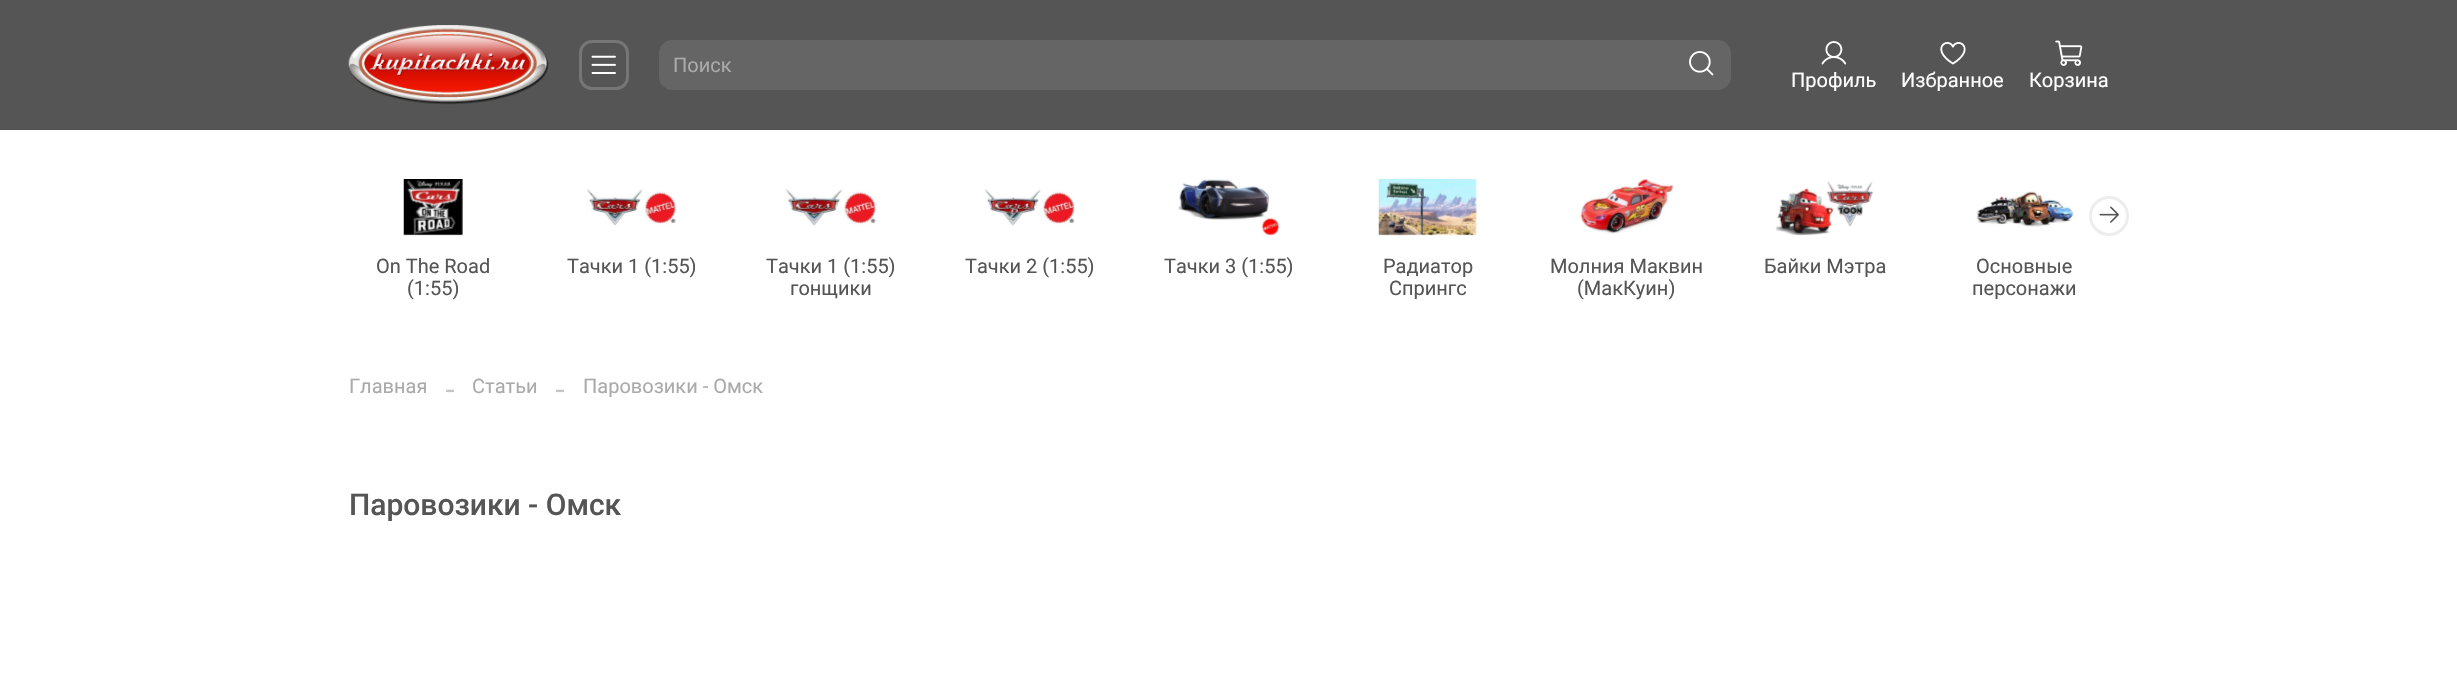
#include "include/core/SkBlurTypes.h"
#include "include/core/SkCanvas.h"
#include "include/core/SkData.h"
#include "include/core/SkFont.h"
#include "include/core/SkFontMgr.h"
#include "include/core/SkImage.h"
#include "include/core/SkMaskFilter.h"
#include "include/core/SkPaint.h"
#include "include/core/SkPathBuilder.h"
#include "include/core/SkTextBlob.h"
#include "include/effects/SkDashPathEffect.h"
#include "include/effects/SkGradientShader.h"
#include "include/utils/SkParsePath.h"

extern sk_sp<SkFontMgr> fontMgr;

static SkFont font(const char* family, int weight, float size, bool italic = false) {
    SkFontStyle style(weight, SkFontStyle::kNormal_Width,
        italic ? SkFontStyle::kItalic_Slant : SkFontStyle::kUpright_Slant);
    SkFont result(fontMgr->matchFamilyStyle(family, style), size);
    result.setSubpixel(true);
    return result;
}

static void drawLabel(SkCanvas* canvas, const char* s, float x, float y, const SkFont& font, SkColor color) {
    SkPaint ink(SkColor4f::FromColor(color));
    ink.setAntiAlias(true);
    canvas->drawString(s, x, y, font, ink);
}

static void fillRect(SkCanvas* canvas, float x, float y, float w, float h, SkColor color) {
    SkPaint ink(SkColor4f::FromColor(color));
    ink.setAntiAlias(true);
    canvas->drawRect(SkRect::MakeXYWH(x, y, w, h), ink);
}

static void drawPhoto(SkCanvas* canvas, const char* path, float x, float y, float w, float h) {
    auto image = SkImages::DeferredFromEncodedData(SkData::MakeFromFileName(path));
    canvas->drawImageRect(image, SkRect::MakeXYWH(x, y, w, h), SkSamplingOptions());
}

void draw(SkCanvas* canvas) {
    SkPaint paint;
    paint.setAntiAlias(true);
    canvas->clear(0xFFFFFFFF);
    fillRect(canvas, 0, 0, 2457, 130, 0xFF555555);
    drawPhoto(canvas, "assets/img1.png", 348, 25, 201, 80);
    paint.setStroke(true);
    paint.setStrokeWidth(3);
    paint.setColor(0xFF767676);
    canvas->drawRoundRect(SkRect::MakeXYWH(580.5f, 41.5f, 47, 47), 11.5f, 11.5f, paint);
    drawPhoto(canvas, "assets/img2.png", 591, 55, 25, 19);
    paint.setStroke(false);
    paint.setColor(0xFF656565);
    canvas->drawRoundRect(SkRect::MakeXYWH(659.5f, 40.5f, 1071, 49), 12.5f, 12.5f, paint);
    paint.setStroke(true);
    paint.setStrokeWidth(1);
    canvas->drawRoundRect(SkRect::MakeXYWH(659.5f, 40.5f, 1071, 49), 12.5f, 12.5f, paint);
    SkFont font1 = font("Roboto", 400, 20);
    drawLabel(canvas, "Поиск", 673, 72, font1, 0xFFAAAAAA);
    drawPhoto(canvas, "assets/img3.png", 1689, 51, 25, 25);
    drawPhoto(canvas, "assets/img4.png", 1821, 41, 26, 24);
    drawLabel(canvas, "Профиль", 1791, 87, font1, 0xFFFFFFFF);
    drawPhoto(canvas, "assets/img5.png", 1940, 42, 26, 23);
    drawLabel(canvas, "Избранное", 1901, 87, font1, 0xFFFFFFFF);
    drawPhoto(canvas, "assets/img6.png", 2055, 40, 28, 26);
    drawLabel(canvas, "Корзина", 2029, 87, font1, 0xFFFFFFFF);
    paint.setStrokeWidth(3);
    paint.setColor(0xFFEDEDED);
    canvas->drawCircle(2109, 216, 18.5f, paint);
    drawPhoto(canvas, "assets/img7.png", 2099, 206, 20, 17);
    drawPhoto(canvas, "assets/img8.png", 403, 179, 60, 57);
    drawLabel(canvas, "On The Road", 376, 273, font1, 0xFF555555);
    drawLabel(canvas, "(1:55)", 407, 295, font1, 0xFF555555);
    drawPhoto(canvas, "assets/img9.png", 586, 189, 91, 37);
    drawLabel(canvas, "Тачки 1 (1:55)", 567, 273, font1, 0xFF555555);
    drawPhoto(canvas, "assets/img10.png", 785, 189, 93, 37);
    drawLabel(canvas, "Тачки 1 (1:55)", 766, 273, font1, 0xFF555555);
    drawLabel(canvas, "гонщики", 790, 295, font1, 0xFF555555);
    drawPhoto(canvas, "assets/img11.png", 984, 189, 91, 37);
    drawLabel(canvas, "Тачки 2 (1:55)", 965, 273, font1, 0xFF555555);
    drawPhoto(canvas, "assets/img12.png", 1178, 179, 101, 57);
    drawLabel(canvas, "Тачки 3 (1:55)", 1164, 273, font1, 0xFF555555);
    drawPhoto(canvas, "assets/img13.png", 1378, 179, 99, 57);
    drawLabel(canvas, "Радиатор", 1383, 273, font1, 0xFF555555);
    drawLabel(canvas, "Спрингс", 1389, 295, font1, 0xFF555555);
    drawPhoto(canvas, "assets/img14.png", 1579, 179, 95, 55);
    drawLabel(canvas, "Молния Маквин", 1550, 273, font1, 0xFF555555);
    drawLabel(canvas, "(МакКуин)", 1577, 295, font1, 0xFF555555);
    drawPhoto(canvas, "assets/img15.png", 1775, 181, 98, 55);
    drawLabel(canvas, "Байки Мэтра", 1764, 273, font1, 0xFF555555);
    drawPhoto(canvas, "assets/img16.png", 1976, 191, 98, 36);
    drawLabel(canvas, "Основные", 1976, 273, font1, 0xFF555555);
    drawLabel(canvas, "персонажи", 1972, 295, font1, 0xFF555555);
    drawLabel(canvas, "Главная", 349, 393, font1, 0xFFAAAAAA);
    SkFont font2 = font("Liberation Serif", 400, 30);
    drawLabel(canvas, "-", 445, 398, font2, 0xFFC4C4C4);
    drawLabel(canvas, "Статьи", 472, 393, font1, 0xFFAAAAAA);
    drawLabel(canvas, "-", 555, 398, font2, 0xFFC4C4C4);
    drawLabel(canvas, "Паровозики - Омск", 583, 393, font1, 0xFFAAAAAA);
    SkFont font3 = font("Roboto", 500, 30);
    drawLabel(canvas, "Паровозики - Омск", 349, 515, font3, 0xFF555555);
}
